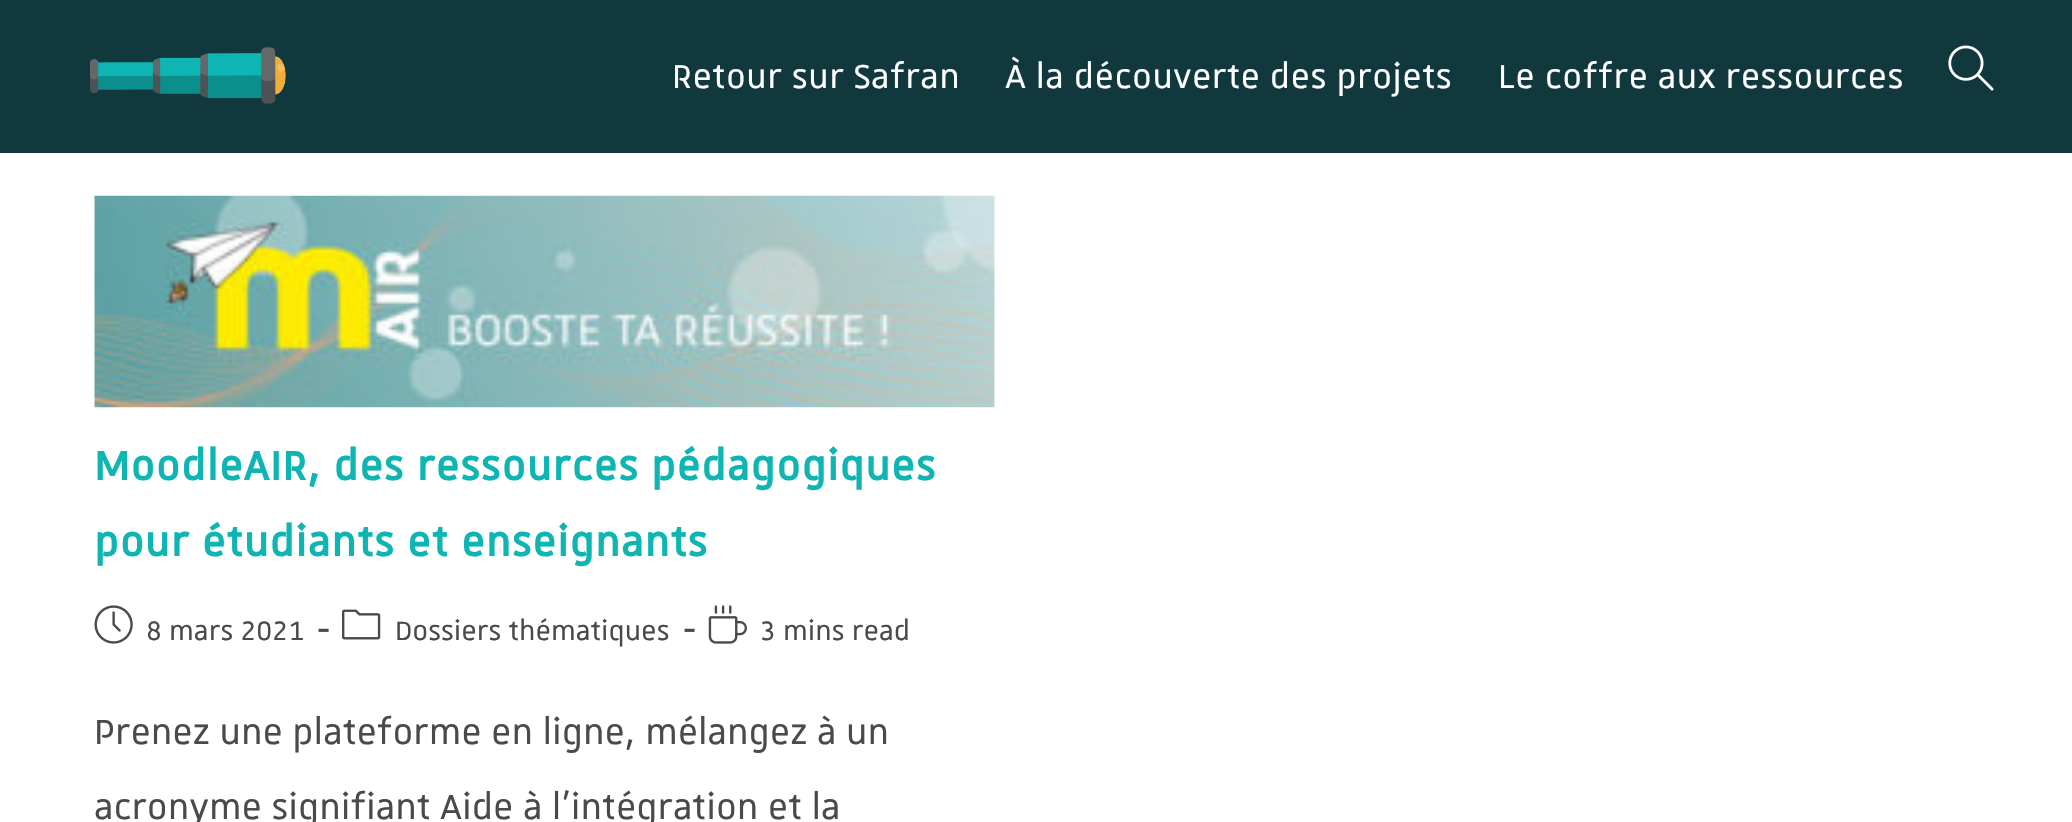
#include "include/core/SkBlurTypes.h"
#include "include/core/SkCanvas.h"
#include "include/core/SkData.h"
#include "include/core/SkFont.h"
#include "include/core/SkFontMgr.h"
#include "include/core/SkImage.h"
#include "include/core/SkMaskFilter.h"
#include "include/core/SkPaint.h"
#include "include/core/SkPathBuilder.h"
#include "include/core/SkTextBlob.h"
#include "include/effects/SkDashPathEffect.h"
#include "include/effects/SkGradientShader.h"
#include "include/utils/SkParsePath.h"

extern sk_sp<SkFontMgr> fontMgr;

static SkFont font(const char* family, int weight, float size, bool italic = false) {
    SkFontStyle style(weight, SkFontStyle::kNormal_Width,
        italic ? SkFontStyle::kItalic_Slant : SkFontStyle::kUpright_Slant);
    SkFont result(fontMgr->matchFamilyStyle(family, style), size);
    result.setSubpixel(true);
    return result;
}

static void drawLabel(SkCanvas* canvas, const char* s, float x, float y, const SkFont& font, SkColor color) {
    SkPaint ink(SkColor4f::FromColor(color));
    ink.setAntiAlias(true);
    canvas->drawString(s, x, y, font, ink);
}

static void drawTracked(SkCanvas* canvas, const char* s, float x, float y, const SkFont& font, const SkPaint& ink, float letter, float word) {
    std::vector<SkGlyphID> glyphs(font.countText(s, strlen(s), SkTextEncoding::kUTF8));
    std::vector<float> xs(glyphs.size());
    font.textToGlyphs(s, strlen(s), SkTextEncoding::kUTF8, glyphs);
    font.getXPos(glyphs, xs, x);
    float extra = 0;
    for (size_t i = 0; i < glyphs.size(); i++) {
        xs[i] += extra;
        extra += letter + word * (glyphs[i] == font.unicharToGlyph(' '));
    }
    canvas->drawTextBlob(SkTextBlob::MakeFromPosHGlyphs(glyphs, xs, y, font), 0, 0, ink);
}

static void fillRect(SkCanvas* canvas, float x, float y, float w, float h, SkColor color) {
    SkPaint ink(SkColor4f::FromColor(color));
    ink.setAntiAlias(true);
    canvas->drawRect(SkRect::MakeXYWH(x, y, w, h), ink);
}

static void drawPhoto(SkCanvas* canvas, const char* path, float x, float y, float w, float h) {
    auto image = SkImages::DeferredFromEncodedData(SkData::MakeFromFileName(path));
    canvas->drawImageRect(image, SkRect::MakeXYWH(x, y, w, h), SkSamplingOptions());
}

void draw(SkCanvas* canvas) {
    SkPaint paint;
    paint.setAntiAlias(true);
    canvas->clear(0xFFFFFFFF);
    fillRect(canvas, 0, 0, 2072, 153, 0xFF11393D);
    drawPhoto(canvas, "assets/img1.png", 90, 47, 196, 57);
    SkFont font1 = font("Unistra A", 400, 45);
    paint.setColor(0xFFFFFFFF);
    drawTracked(canvas, "Retour sur Safran", 672, 88, font1, paint, 0.45f, 0);
    drawTracked(canvas, "À la découverte des projets", 1005, 88, font1, paint, 0.45f, 0);
    drawTracked(canvas, "Le coffre aux ressources", 1498, 88, font1, paint, 0.45f, 0);
    drawPhoto(canvas, "assets/img2.png", 1948, 45, 46, 46);
    drawPhoto(canvas, "assets/img3.png", 94, 195, 901, 213);
    SkFont font2 = font("Unistra A", 700, 54);
    paint.setColor(0xFF0EB5B2);
    drawTracked(canvas, "MoodleAIR, des ressources pédagogiques", 94, 480, font2, paint, 1.35f, 0);
    drawTracked(canvas, "pour étudiants et enseignants", 94, 556, font2, paint, 1.35f, 0);
    drawPhoto(canvas, "assets/img4.png", 94, 605, 39, 39);
    SkFont font3 = font("Unistra A", 400, 36);
    drawLabel(canvas, "8 mars 2021", 146, 640, font3, 0xFF4A4A4A);
    SkFont font4 = font("Unistra A", 700, 36);
    drawLabel(canvas, "-", 317, 640, font4, 0xFF4A4A4A);
    drawPhoto(canvas, "assets/img5.png", 342, 609, 39, 31);
    drawLabel(canvas, "Dossiers thématiques", 395, 640, font3, 0xFF4A4A4A);
    drawLabel(canvas, "-", 683, 640, font4, 0xFF4A4A4A);
    drawPhoto(canvas, "assets/img6.png", 708, 605, 39, 39);
    drawLabel(canvas, "3 mins read", 760, 640, font3, 0xFF4A4A4A);
    SkFont font5 = font("Unistra A", 400, 47.25f);
    drawLabel(canvas, "Prenez une plateforme en ligne, mélangez à un", 94, 744, font5, 0xFF4A4A4A);
    drawLabel(canvas, "acronyme signifiant Aide à l’intégration et la", 94, 819, font5, 0xFF4A4A4A);
}
